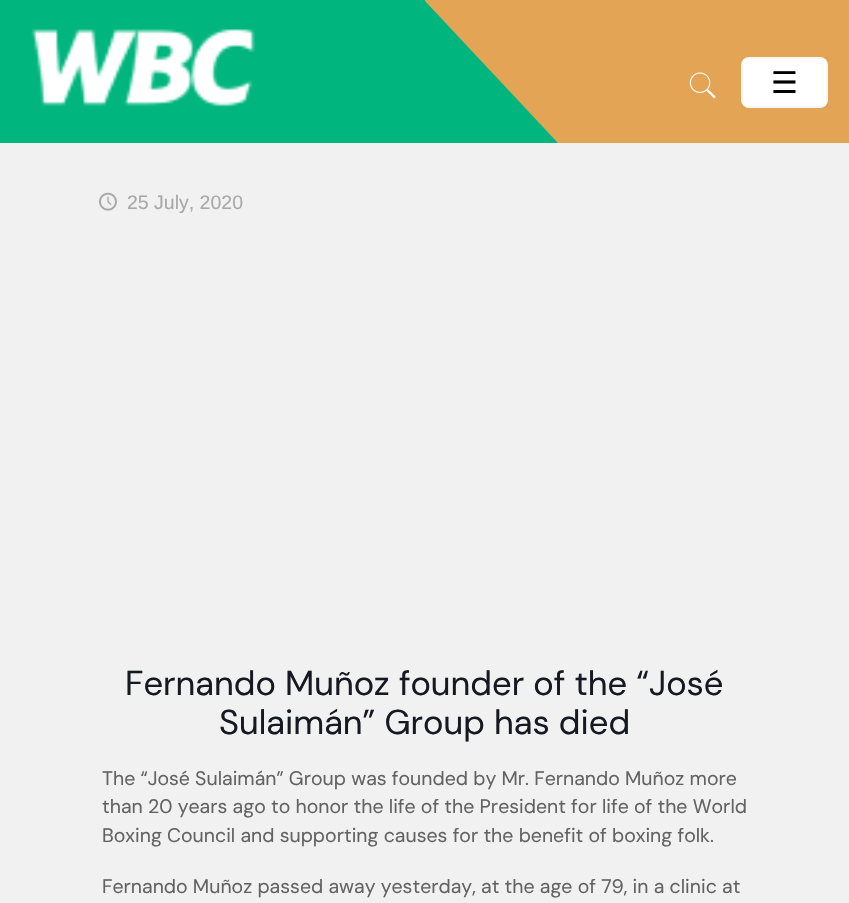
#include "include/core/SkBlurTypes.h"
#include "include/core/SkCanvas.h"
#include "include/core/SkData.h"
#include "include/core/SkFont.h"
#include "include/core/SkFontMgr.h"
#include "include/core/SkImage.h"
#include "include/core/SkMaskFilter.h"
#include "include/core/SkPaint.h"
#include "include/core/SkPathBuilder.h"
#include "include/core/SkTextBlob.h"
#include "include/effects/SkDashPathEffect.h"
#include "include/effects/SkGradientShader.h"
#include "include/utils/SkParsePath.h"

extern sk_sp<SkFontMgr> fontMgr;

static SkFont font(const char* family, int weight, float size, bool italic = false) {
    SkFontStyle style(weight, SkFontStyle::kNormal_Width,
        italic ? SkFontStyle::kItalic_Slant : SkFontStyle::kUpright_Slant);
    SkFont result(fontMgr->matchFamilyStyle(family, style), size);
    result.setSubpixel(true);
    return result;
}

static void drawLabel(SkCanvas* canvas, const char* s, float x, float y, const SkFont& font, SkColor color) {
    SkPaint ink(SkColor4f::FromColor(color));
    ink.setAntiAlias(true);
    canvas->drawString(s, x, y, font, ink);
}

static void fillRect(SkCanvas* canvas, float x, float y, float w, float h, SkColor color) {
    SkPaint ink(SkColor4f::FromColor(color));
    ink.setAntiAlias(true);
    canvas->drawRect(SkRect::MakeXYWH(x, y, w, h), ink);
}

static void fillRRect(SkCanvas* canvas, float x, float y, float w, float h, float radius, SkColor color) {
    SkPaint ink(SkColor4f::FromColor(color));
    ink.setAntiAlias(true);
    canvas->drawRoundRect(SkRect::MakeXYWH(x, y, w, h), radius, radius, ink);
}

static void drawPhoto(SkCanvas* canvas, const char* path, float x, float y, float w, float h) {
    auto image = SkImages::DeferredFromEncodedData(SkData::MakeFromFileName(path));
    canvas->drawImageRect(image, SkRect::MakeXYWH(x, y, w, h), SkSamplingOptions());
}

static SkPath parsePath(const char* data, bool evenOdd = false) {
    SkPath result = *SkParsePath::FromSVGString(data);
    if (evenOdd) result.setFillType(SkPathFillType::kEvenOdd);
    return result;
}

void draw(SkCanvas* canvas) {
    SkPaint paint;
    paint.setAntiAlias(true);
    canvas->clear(0xFFF1F1F1);
    fillRect(canvas, 0, 0, 558, 143, 0xFF00B67E);
    paint.setColor(0xFFE3A455);
    canvas->drawPath(parsePath("M425 0H849V143H558L425 1Z"), paint);
    drawPhoto(canvas, "assets/img1.png", 31, 29, 224, 78);
    drawPhoto(canvas, "assets/img2.png", 689, 72, 27, 27);
    fillRRect(canvas, 741, 57, 87, 51, 8, 0xFFFFFFFF);
    paint.setStroke(true);
    paint.setStrokeWidth(2);
    paint.setColor(0x08000000);
    canvas->drawRect(SkRect::MakeXYWH(742, 58, 85, 49), paint);
    SkFont font1 = font("DejaVu Sans", 400, 30);
    drawLabel(canvas, "☰", 771, 93, font1, 0xFF000000);
    drawPhoto(canvas, "assets/img3.png", 99, 192, 18, 19);
    SkFont font2 = font("Liberation Sans", 400, 19.5f);
    drawLabel(canvas, "25 July, 2020", 127, 209, font2, 0xFFA8A8A8);
    SkFont font3 = font("DM Sans", 400, 34.5f);
    drawLabel(canvas, "Fernando Muñoz founder of the “José", 125, 695, font3, 0xFF161922);
    drawLabel(canvas, "Sulaimán” Group has died", 219, 734, font3, 0xFF161922);
    SkFont font4 = font("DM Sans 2", 400, 19.5f);
    drawLabel(canvas, "The “José Sulaimán” Group was founded by Mr. Fernando Muñoz more", 102, 785, font4, 0xFF626262);
    drawLabel(canvas, "than 20 years ago to honor the life of the President for life of the World", 102, 813, font4, 0xFF626262);
    drawLabel(canvas, "Boxing Council and supporting causes for the benefit of boxing folk.", 102, 842, font4, 0xFF626262);
    drawLabel(canvas, "Fernando Muñoz passed away yesterday, at the age of 79, in a clinic at", 102, 893, font4, 0xFF626262);
}
